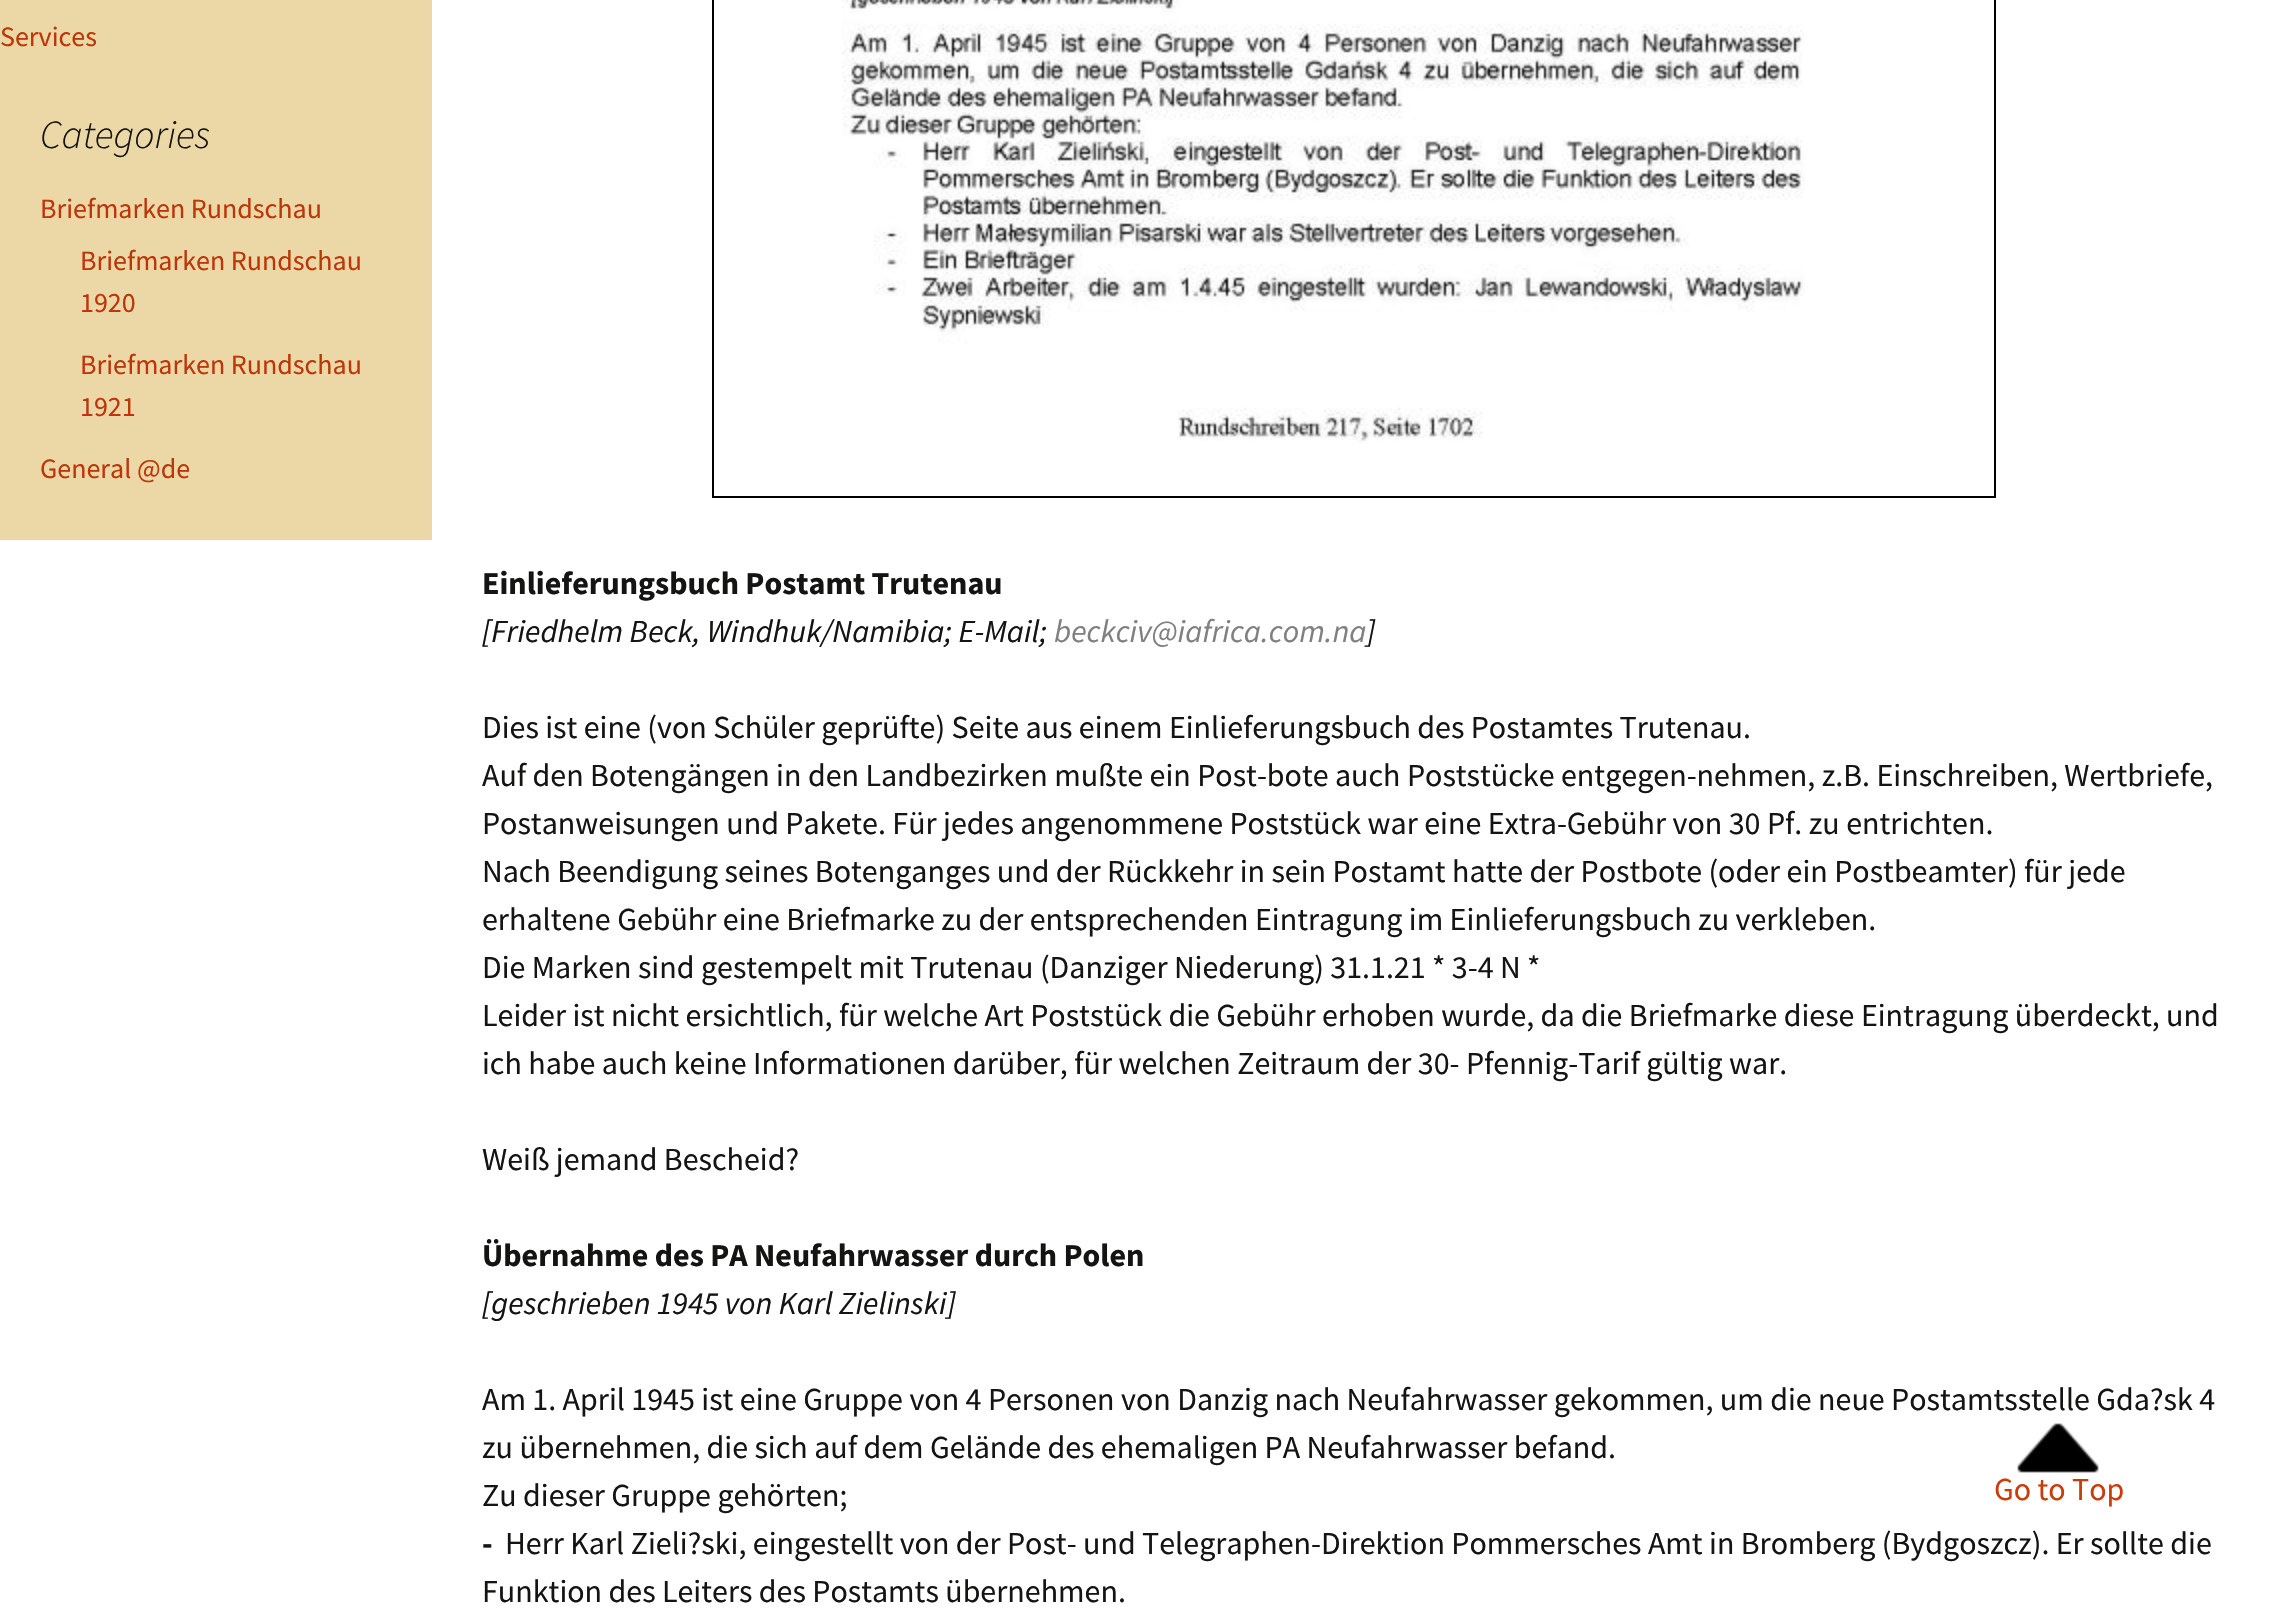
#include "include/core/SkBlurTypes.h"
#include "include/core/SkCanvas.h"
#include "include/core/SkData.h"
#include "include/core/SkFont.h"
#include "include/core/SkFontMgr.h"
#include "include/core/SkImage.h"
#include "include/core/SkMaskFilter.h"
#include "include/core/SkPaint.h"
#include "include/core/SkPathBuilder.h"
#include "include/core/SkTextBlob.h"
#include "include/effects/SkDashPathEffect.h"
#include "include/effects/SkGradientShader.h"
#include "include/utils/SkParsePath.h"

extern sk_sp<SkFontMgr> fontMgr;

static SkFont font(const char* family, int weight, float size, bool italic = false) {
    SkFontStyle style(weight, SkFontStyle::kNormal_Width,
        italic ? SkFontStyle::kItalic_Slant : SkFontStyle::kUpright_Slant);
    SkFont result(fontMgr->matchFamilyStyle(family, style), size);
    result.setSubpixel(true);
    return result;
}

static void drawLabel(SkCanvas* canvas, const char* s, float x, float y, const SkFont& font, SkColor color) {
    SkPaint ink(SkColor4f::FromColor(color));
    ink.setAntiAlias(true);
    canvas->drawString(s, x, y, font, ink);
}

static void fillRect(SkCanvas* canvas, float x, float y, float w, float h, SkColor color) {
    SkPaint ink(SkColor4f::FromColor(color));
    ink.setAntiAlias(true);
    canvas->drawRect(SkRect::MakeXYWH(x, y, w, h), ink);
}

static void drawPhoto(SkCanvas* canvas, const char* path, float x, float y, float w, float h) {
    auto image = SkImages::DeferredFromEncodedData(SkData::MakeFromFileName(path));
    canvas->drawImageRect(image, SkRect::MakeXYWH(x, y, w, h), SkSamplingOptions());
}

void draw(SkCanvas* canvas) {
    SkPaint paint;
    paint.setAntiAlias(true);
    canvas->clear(0xFFFFFFFF);
    fillRect(canvas, 0, 0, 432, 540, 0xFFECD7A6);
    SkFont font1 = font("Source Sans Pro", 400, 28);
    drawLabel(canvas, "Services", 0, 46, font1, 0xFFBC360A);
    SkFont font2 = font("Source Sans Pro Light", 300, 40, true);
    drawLabel(canvas, "Categories", 40, 148, font2, 0xFF141412);
    drawLabel(canvas, "Briefmarken Rundschau", 40, 218, font1, 0xFFBC360A);
    drawLabel(canvas, "Briefmarken Rundschau", 80, 270, font1, 0xFFBC360A);
    drawLabel(canvas, "1920", 80, 312, font1, 0xFFBC360A);
    drawLabel(canvas, "Briefmarken Rundschau", 80, 374, font1, 0xFFBC360A);
    drawLabel(canvas, "1921", 80, 416, font1, 0xFFBC360A);
    drawLabel(canvas, "General @de", 40, 478, font1, 0xFFBC360A);
    paint.setStroke(true);
    paint.setStrokeWidth(2);
    paint.setColor(0xFF000000);
    canvas->drawRect(SkRect::MakeXYWH(713, -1, 1282, 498), paint);
    drawPhoto(canvas, "assets/img1.png", 842, 0, 963, 443);
    SkFont font3 = font("Source Sans Pro", 700, 32);
    drawLabel(canvas, "Einlieferungsbuch Postamt Trutenau", 482, 594, font3, 0xFF141412);
    SkFont font4 = font("Source Sans Pro", 400, 32, true);
    drawLabel(canvas, "[Friedhelm Beck, Windhuk/Namibia; E-Mail;", 482, 642, font4, 0xFF141412);
    drawLabel(canvas, "beckciv@iafrica.com.na", 1054, 642, font4, 0xFF808080);
    drawLabel(canvas, "]", 1366, 642, font4, 0xFF141412);
    SkFont font5 = font("Source Sans Pro", 400, 32);
    drawLabel(canvas, "Dies ist eine (von Schüler geprüfte) Seite aus einem Einlieferungsbuch des Postamtes Trutenau.", 482, 738, font5, 0xFF141412);
    drawLabel(canvas, "Auf den Botengängen in den Landbezirken mußte ein Post-bote auch Poststücke entgegen-nehmen, z.B. Einschreiben, Wertbriefe,", 482, 786, font5, 0xFF141412);
    drawLabel(canvas, "Postanweisungen und Pakete. Für jedes angenommene Poststück war eine Extra-Gebühr von 30 Pf. zu entrichten.", 482, 834, font5, 0xFF141412);
    drawLabel(canvas, "Nach Beendigung seines Botenganges und der Rückkehr in sein Postamt hatte der Postbote (oder ein Postbeamter) für jede", 482, 882, font5, 0xFF141412);
    drawLabel(canvas, "erhaltene Gebühr eine Briefmarke zu der entsprechenden Eintragung im Einlieferungsbuch zu verkleben.", 482, 930, font5, 0xFF141412);
    drawLabel(canvas, "Die Marken sind gestempelt mit Trutenau (Danziger Niederung) 31.1.21 * 3-4 N *", 482, 978, font5, 0xFF141412);
    drawLabel(canvas, "Leider ist nicht ersichtlich, für welche Art Poststück die Gebühr erhoben wurde, da die Briefmarke diese Eintragung überdeckt, und", 482, 1026, font5, 0xFF141412);
    drawLabel(canvas, "ich habe auch keine Informationen darüber, für welchen Zeitraum der 30- Pfennig-Tarif gültig war.", 482, 1074, font5, 0xFF141412);
    drawLabel(canvas, "Weiß jemand Bescheid?", 482, 1170, font5, 0xFF141412);
    drawLabel(canvas, "Übernahme des PA Neufahrwasser durch Polen", 482, 1266, font3, 0xFF141412);
    drawLabel(canvas, "[geschrieben 1945 von Karl Zielinski]", 482, 1314, font4, 0xFF141412);
    drawLabel(canvas, "Am 1. April 1945 ist eine Gruppe von 4 Personen von Danzig nach Neufahrwasser gekommen, um die neue Postamtsstelle Gda?sk 4", 482, 1410, font5, 0xFF141412);
    drawLabel(canvas, "zu übernehmen, die sich auf dem Gelände des ehemaligen PA Neufahrwasser befand.", 482, 1458, font5, 0xFF141412);
    drawLabel(canvas, "Zu dieser Gruppe gehörten;", 482, 1506, font5, 0xFF141412);
    drawLabel(canvas, "-", 482, 1554, font3, 0xFF141412);
    drawLabel(canvas, "Herr Karl Zieli?ski, eingestellt von der Post- und Telegraphen-Direktion Pommersches Amt in Bromberg (Bydgoszcz). Er sollte die", 505, 1554, font5, 0xFF141412);
    drawLabel(canvas, "Funktion des Leiters des Postamts übernehmen.", 482, 1602, font5, 0xFF141412);
    drawPhoto(canvas, "assets/img2.png", 2017, 1423, 82, 50);
    drawLabel(canvas, "Go to Top", 1994, 1500, font5, 0xFFCA3C08);
}
